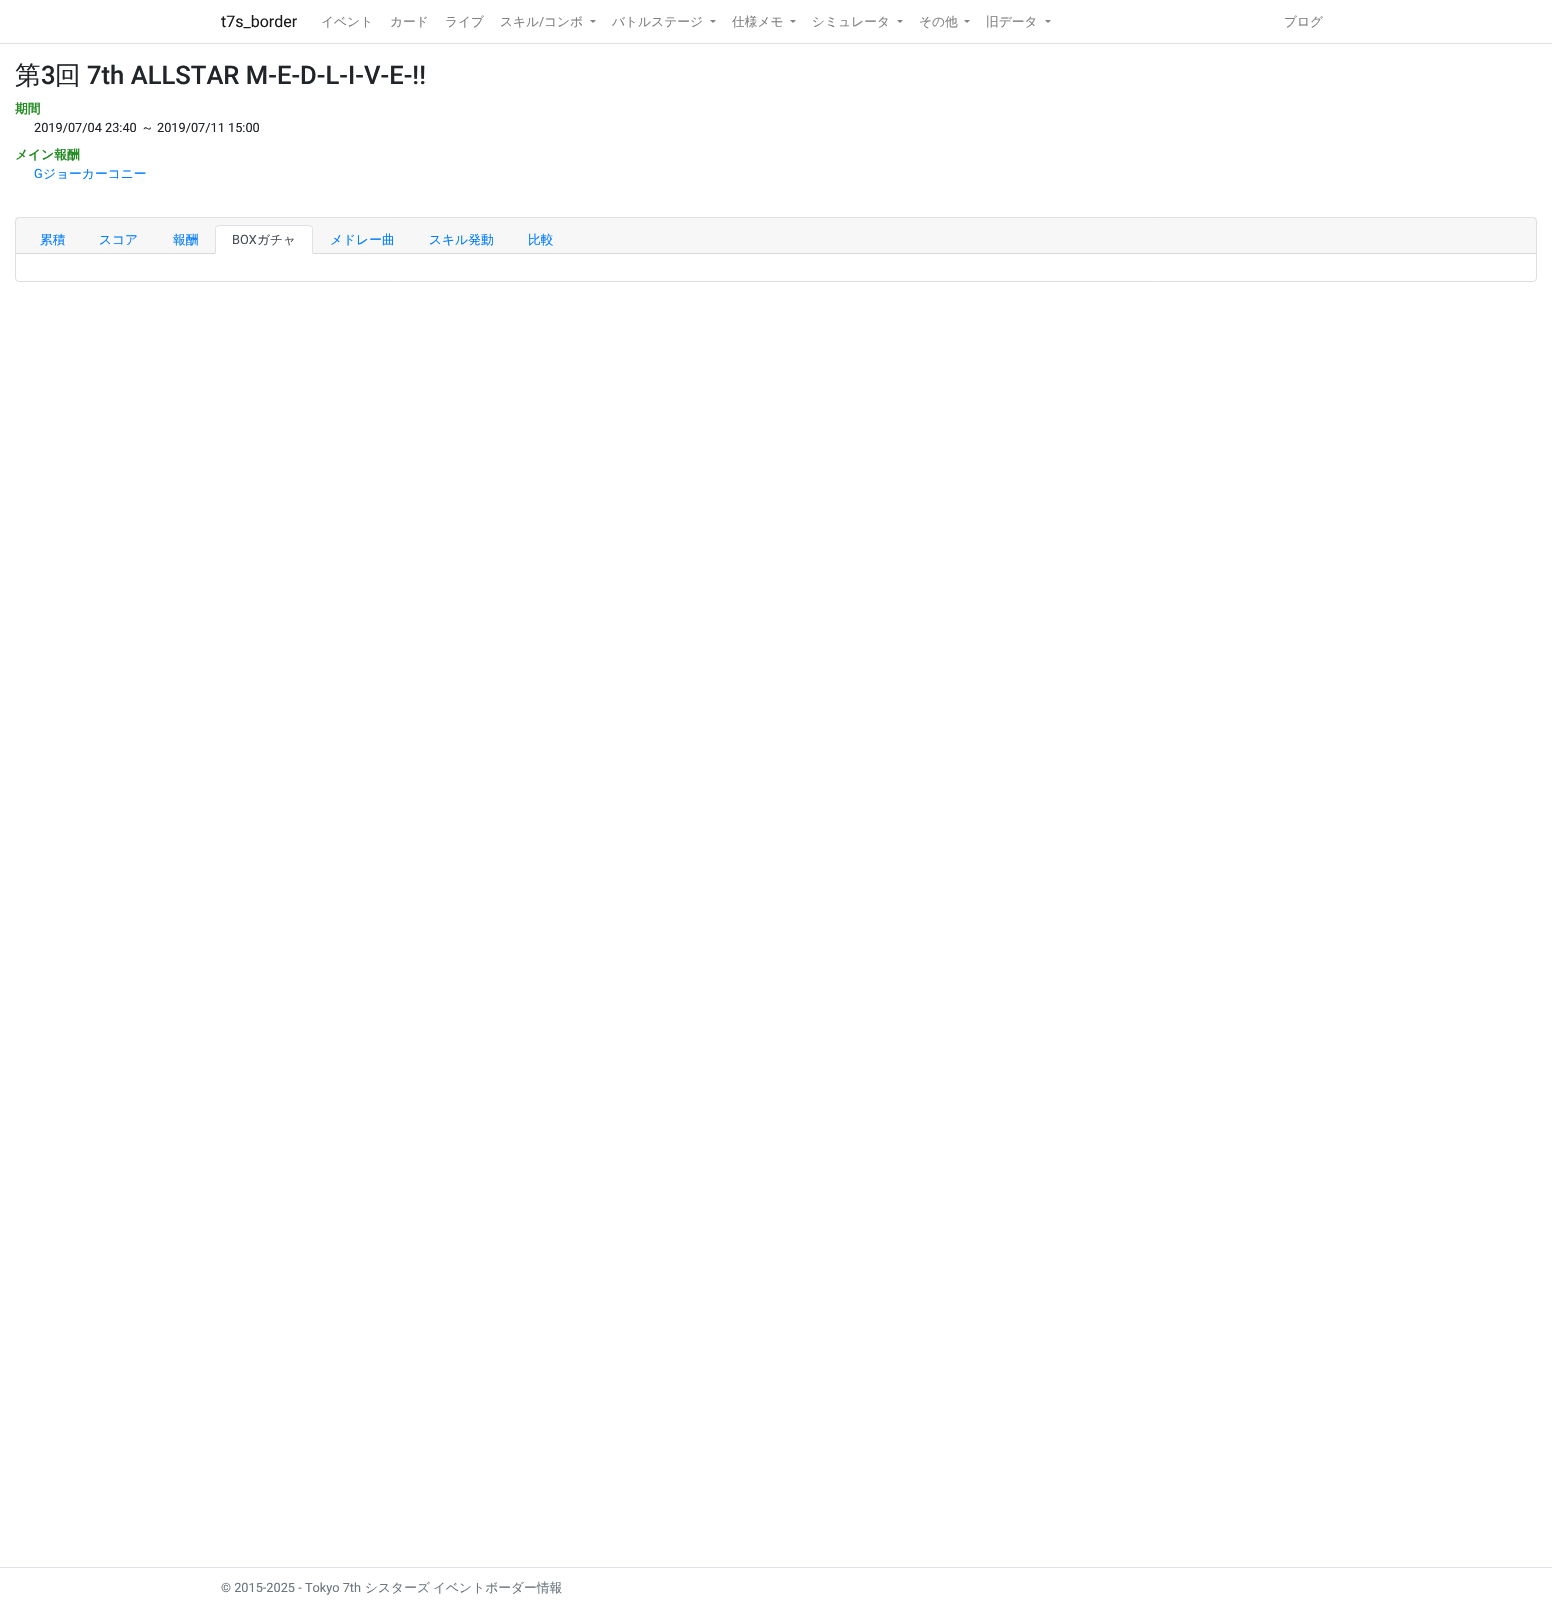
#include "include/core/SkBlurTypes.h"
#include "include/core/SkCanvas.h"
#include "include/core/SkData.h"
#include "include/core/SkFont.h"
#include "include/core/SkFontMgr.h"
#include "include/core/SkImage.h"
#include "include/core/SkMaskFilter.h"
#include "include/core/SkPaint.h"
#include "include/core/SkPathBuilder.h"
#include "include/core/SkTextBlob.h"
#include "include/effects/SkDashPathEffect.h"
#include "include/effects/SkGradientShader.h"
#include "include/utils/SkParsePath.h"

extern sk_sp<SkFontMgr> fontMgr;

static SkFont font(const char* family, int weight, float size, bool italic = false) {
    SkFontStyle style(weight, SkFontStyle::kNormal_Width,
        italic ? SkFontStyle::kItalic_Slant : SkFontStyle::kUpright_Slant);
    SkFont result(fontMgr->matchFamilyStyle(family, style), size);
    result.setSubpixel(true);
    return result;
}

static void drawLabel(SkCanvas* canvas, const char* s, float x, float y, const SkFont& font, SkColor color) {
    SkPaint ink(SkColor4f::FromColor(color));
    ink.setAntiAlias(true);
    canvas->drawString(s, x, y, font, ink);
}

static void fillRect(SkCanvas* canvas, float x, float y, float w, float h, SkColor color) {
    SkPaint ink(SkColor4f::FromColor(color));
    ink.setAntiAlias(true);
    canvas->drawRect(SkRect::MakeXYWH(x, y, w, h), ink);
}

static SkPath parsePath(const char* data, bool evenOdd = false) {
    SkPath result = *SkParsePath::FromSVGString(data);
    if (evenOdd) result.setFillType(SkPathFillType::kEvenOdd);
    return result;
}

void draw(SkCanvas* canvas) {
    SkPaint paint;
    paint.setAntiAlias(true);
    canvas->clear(0xFFFFFFFF);
    fillRect(canvas, 0, 43, 1552, 1, 0xFFDEE2E6);
    SkFont font1 = font("Roboto", 400, 16);
    drawLabel(canvas, "t7s_border", 221, 27, font1, 0xFF1A1A1A);
    SkFont font2 = font("WenQuanYi Zen Hei", 500, 12.75f);
    drawLabel(canvas, "イベント", 321, 26, font2, 0xFF808080);
    drawLabel(canvas, "カード", 390, 26, font2, 0xFF808080);
    drawLabel(canvas, "ライブ", 445, 26, font2, 0xFF808080);
    drawLabel(canvas, "スキル", 500, 26, font2, 0xFF808080);
    SkFont font3 = font("Roboto", 400, 12.75f);
    drawLabel(canvas, "/", 539, 26, font3, 0xFF808080);
    drawLabel(canvas, "コンボ", 544, 26, font2, 0xFF808080);
    paint.setColor(0xFF808080);
    canvas->drawPath(parsePath("M590 20H596L593 23Z"), paint);
    drawLabel(canvas, "バトルステージ", 612, 26, font2, 0xFF808080);
    canvas->drawPath(parsePath("M710 20H716L713 23Z"), paint);
    drawLabel(canvas, "仕様メモ", 732, 26, font2, 0xFF808080);
    canvas->drawPath(parsePath("M790 20H796L793 23Z"), paint);
    drawLabel(canvas, "シミュレータ", 812, 26, font2, 0xFF808080);
    canvas->drawPath(parsePath("M897 20H903L900 23Z"), paint);
    drawLabel(canvas, "その他", 919, 26, font2, 0xFF808080);
    canvas->drawPath(parsePath("M964 20H970L967 23Z"), paint);
    drawLabel(canvas, "旧データ", 986, 26, font2, 0xFF808080);
    canvas->drawPath(parsePath("M1045 20H1051L1048 23Z"), paint);
    drawLabel(canvas, "ブログ", 1284, 26, font2, 0xFF808080);
    SkFont font4 = font("WenQuanYi Zen Hei", 500, 25.6f);
    drawLabel(canvas, "第", 15, 84, font4, 0xFF212529);
    SkFont font5 = font("Roboto", 500, 25.6f);
    drawLabel(canvas, "3", 41, 84, font5, 0xFF212529);
    drawLabel(canvas, "回", 55, 84, font4, 0xFF212529);
    drawLabel(canvas, "7th ALLSTAR M-E-D-L-I-V-E-!!", 87, 84, font5, 0xFF212529);
    SkFont font6 = font("WenQuanYi Zen Hei", 700, 12.75f);
    drawLabel(canvas, "期間", 15, 113, font6, 0xFF228B22);
    drawLabel(canvas, "2019/07/04 23:40", 34, 132, font3, 0xFF212529);
    drawLabel(canvas, "～", 141, 132, font2, 0xFF212529);
    drawLabel(canvas, "2019/07/11 15:00", 157, 132, font3, 0xFF212529);
    drawLabel(canvas, "メイン報酬", 15, 159, font6, 0xFF228B22);
    drawLabel(canvas, "G", 34, 178, font3, 0xFF007BFF);
    drawLabel(canvas, "ジョーカーコニー", 43, 178, font2, 0xFF007BFF);
    paint.setStroke(true);
    paint.setStrokeWidth(1);
    paint.setColor(0xFFDFDFDF);
    canvas->drawRoundRect(SkRect::MakeXYWH(15.5f, 217.5f, 1521, 64), 3.5f, 3.5f, paint);
    fillRect(canvas, 16, 218, 1520, 35, 0x08000000);
    fillRect(canvas, 16, 253, 1520, 1, 0xFFD8D8D8);
    drawLabel(canvas, "累積", 40, 244, font2, 0xFF007BFF);
    drawLabel(canvas, "スコア", 99, 244, font2, 0xFF007BFF);
    drawLabel(canvas, "報酬", 173, 244, font2, 0xFF007BFF);
    paint.setStroke(false);
    paint.setColor(0xFFFFFFFF);
    canvas->drawPath(parsePath("M219 225H309C311 225 313 227 313 229V254H215V229C215 227 217 225 219 225Z"), paint);
    paint.setColor(0xFFDEE2E6);
    canvas->drawPath(parsePath("M219 225L216 226L217 227L219 226H309L311 227L312 226L309 225Z"), paint);
    canvas->drawPath(parsePath("M313 254V229C313 228 312.5 227 312 226L311 227C312 227 312 228 312 229V253Z"), paint);
    paint.setColor(0xFFFFFFFF);
    canvas->drawPath(parsePath("M313 254L312 253H216L215 254Z"), paint);
    paint.setColor(0xFFDEE2E6);
    canvas->drawPath(parsePath("M215 254L216 253V229C216 228 216 227 217 227L216 226C215.5 227 215 228 215 229Z"), paint);
    drawLabel(canvas, "BOX", 232, 244, font3, 0xFF495057);
    drawLabel(canvas, "ガチャ", 257, 244, font2, 0xFF495057);
    drawLabel(canvas, "メドレー曲", 330, 244, font2, 0xFF007BFF);
    drawLabel(canvas, "スキル発動", 429, 244, font2, 0xFF007BFF);
    drawLabel(canvas, "比較", 528, 244, font2, 0xFF007BFF);
    fillRect(canvas, 0, 1567, 1552, 1, 0xFFDEE2E6);
    drawLabel(canvas, "© 2015-2025 - Tokyo 7th", 221, 1592, font3, 0xFF6C757D);
    drawLabel(canvas, "シスターズ", 365, 1592, font2, 0xFF6C757D);
    drawLabel(canvas, "イベントボーダー情報", 433, 1592, font2, 0xFF6C757D);
}
